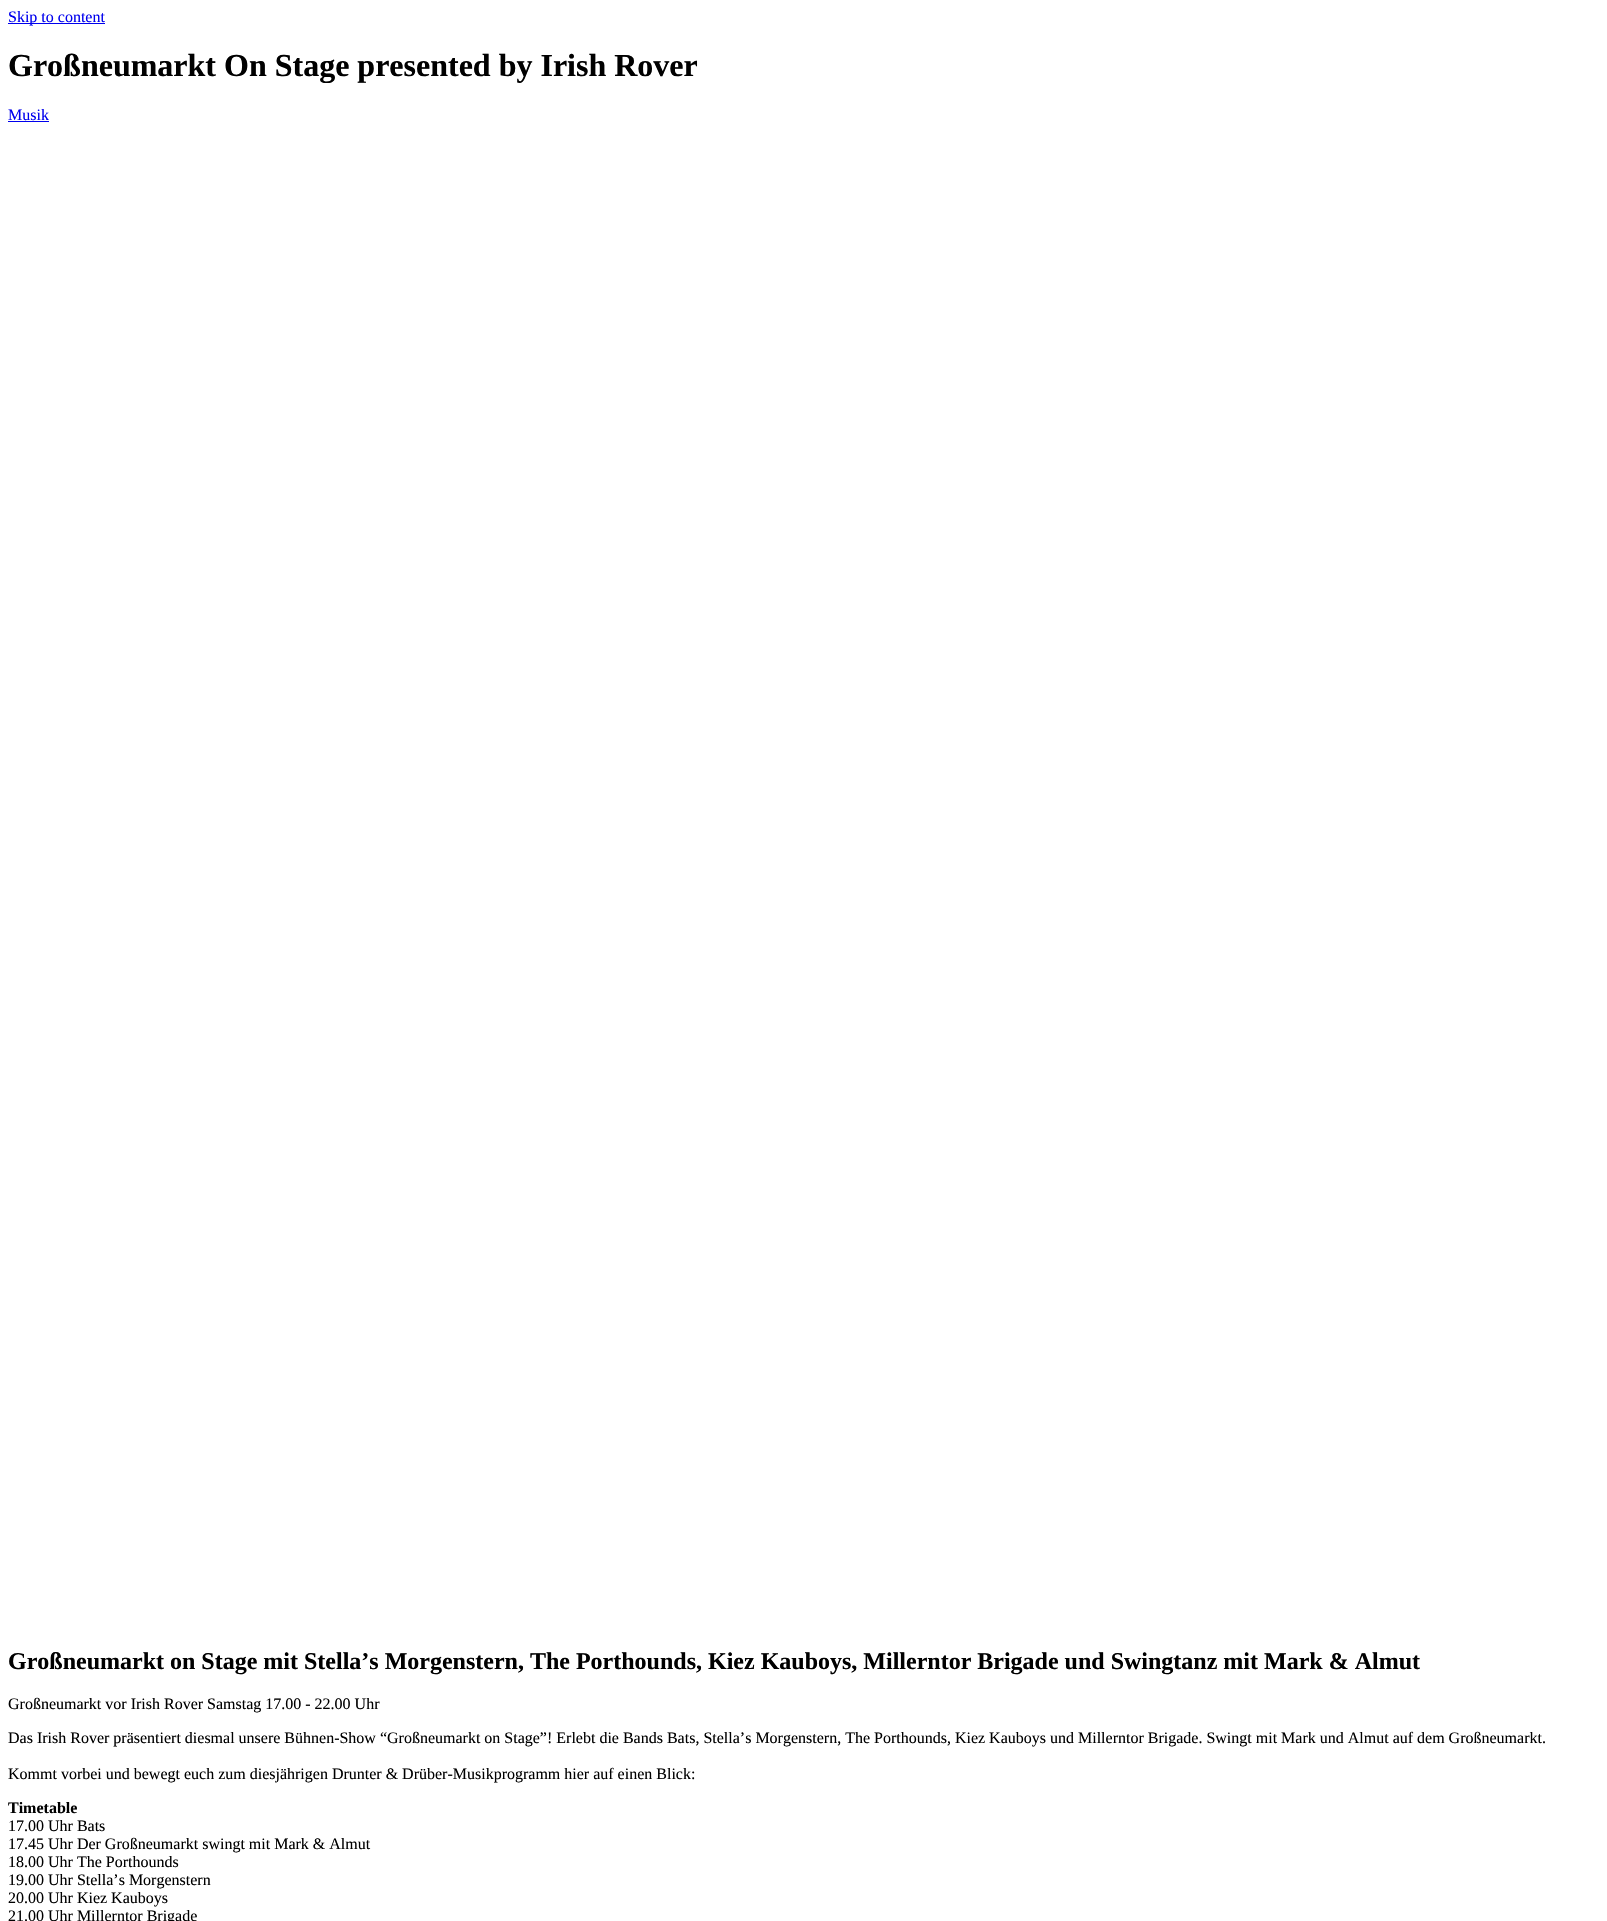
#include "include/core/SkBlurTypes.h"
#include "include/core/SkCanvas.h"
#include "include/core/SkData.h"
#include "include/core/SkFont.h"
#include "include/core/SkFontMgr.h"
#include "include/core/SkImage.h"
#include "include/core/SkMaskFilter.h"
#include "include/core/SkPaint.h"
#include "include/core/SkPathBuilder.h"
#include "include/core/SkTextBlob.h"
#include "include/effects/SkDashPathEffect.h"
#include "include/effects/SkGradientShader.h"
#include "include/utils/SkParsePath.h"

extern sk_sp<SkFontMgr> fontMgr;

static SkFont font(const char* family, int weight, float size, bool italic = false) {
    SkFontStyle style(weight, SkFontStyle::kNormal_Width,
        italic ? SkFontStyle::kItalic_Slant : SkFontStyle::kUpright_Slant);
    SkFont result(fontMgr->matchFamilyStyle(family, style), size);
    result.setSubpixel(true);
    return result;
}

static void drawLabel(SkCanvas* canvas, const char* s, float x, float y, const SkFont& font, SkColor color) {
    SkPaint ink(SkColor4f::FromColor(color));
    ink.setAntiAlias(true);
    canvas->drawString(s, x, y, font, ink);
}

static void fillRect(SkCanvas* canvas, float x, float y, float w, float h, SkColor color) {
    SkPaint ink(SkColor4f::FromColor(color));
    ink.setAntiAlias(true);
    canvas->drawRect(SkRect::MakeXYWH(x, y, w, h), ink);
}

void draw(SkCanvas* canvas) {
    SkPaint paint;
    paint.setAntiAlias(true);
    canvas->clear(0xFFFFFFFF);
    fillRect(canvas, 8, 23, 97, 1, 0xFF0000EE);
    SkFont font1 = font("Liberation Serif", 400, 16);
    drawLabel(canvas, "Skip to content", 8, 22, font1, 0xFF0000EE);
    SkFont font2 = font("Liberation Serif", 700, 32);
    drawLabel(canvas, "Großneumarkt On Stage presented by Irish Rover", 8, 76, font2, 0xFF000000);
    drawLabel(canvas, "Musik", 8, 120, font1, 0xFF0000EE);
    fillRect(canvas, 8, 121, 41, 1, 0xFF0000EE);
    SkFont font3 = font("Liberation Serif", 700, 24);
    drawLabel(canvas, "Großneumarkt on Stage mit Stella’s Morgenstern, The Porthounds, Kiez Kauboys, Millerntor Brigade und Swingtanz mit Mark & Almut", 8, 1669, font3, 0xFF000000);
    drawLabel(canvas, "Großneumarkt vor Irish Rover Samstag 17.00 - 22.00 Uhr", 8, 1709, font1, 0xFF000000);
    drawLabel(canvas, "Das Irish Rover präsentiert diesmal unsere Bühnen-Show “Großneumarkt on Stage”! Erlebt die Bands Bats, Stella’s Morgenstern, The Porthounds, Kiez Kauboys und Millerntor Brigade. Swingt mit Mark und Almut auf dem Großneumarkt.", 8, 1743, font1, 0xFF000000);
    drawLabel(canvas, "Kommt vorbei und bewegt euch zum diesjährigen Drunter & Drüber-Musikprogramm hier auf einen Blick:", 8, 1779, font1, 0xFF000000);
    SkFont font4 = font("Liberation Serif", 700, 16);
    drawLabel(canvas, "Timetable", 8, 1813, font4, 0xFF000000);
    drawLabel(canvas, "17.00 Uhr Bats", 8, 1831, font1, 0xFF000000);
    drawLabel(canvas, "17.45 Uhr Der Großneumarkt swingt mit Mark & Almut", 8, 1849, font1, 0xFF000000);
    drawLabel(canvas, "18.00 Uhr The Porthounds", 8, 1867, font1, 0xFF000000);
    drawLabel(canvas, "19.00 Uhr Stella’s Morgenstern", 8, 1885, font1, 0xFF000000);
    drawLabel(canvas, "20.00 Uhr Kiez Kauboys", 8, 1903, font1, 0xFF000000);
    drawLabel(canvas, "21.00 Uhr Millerntor Brigade", 8, 1921, font1, 0xFF000000);
}
